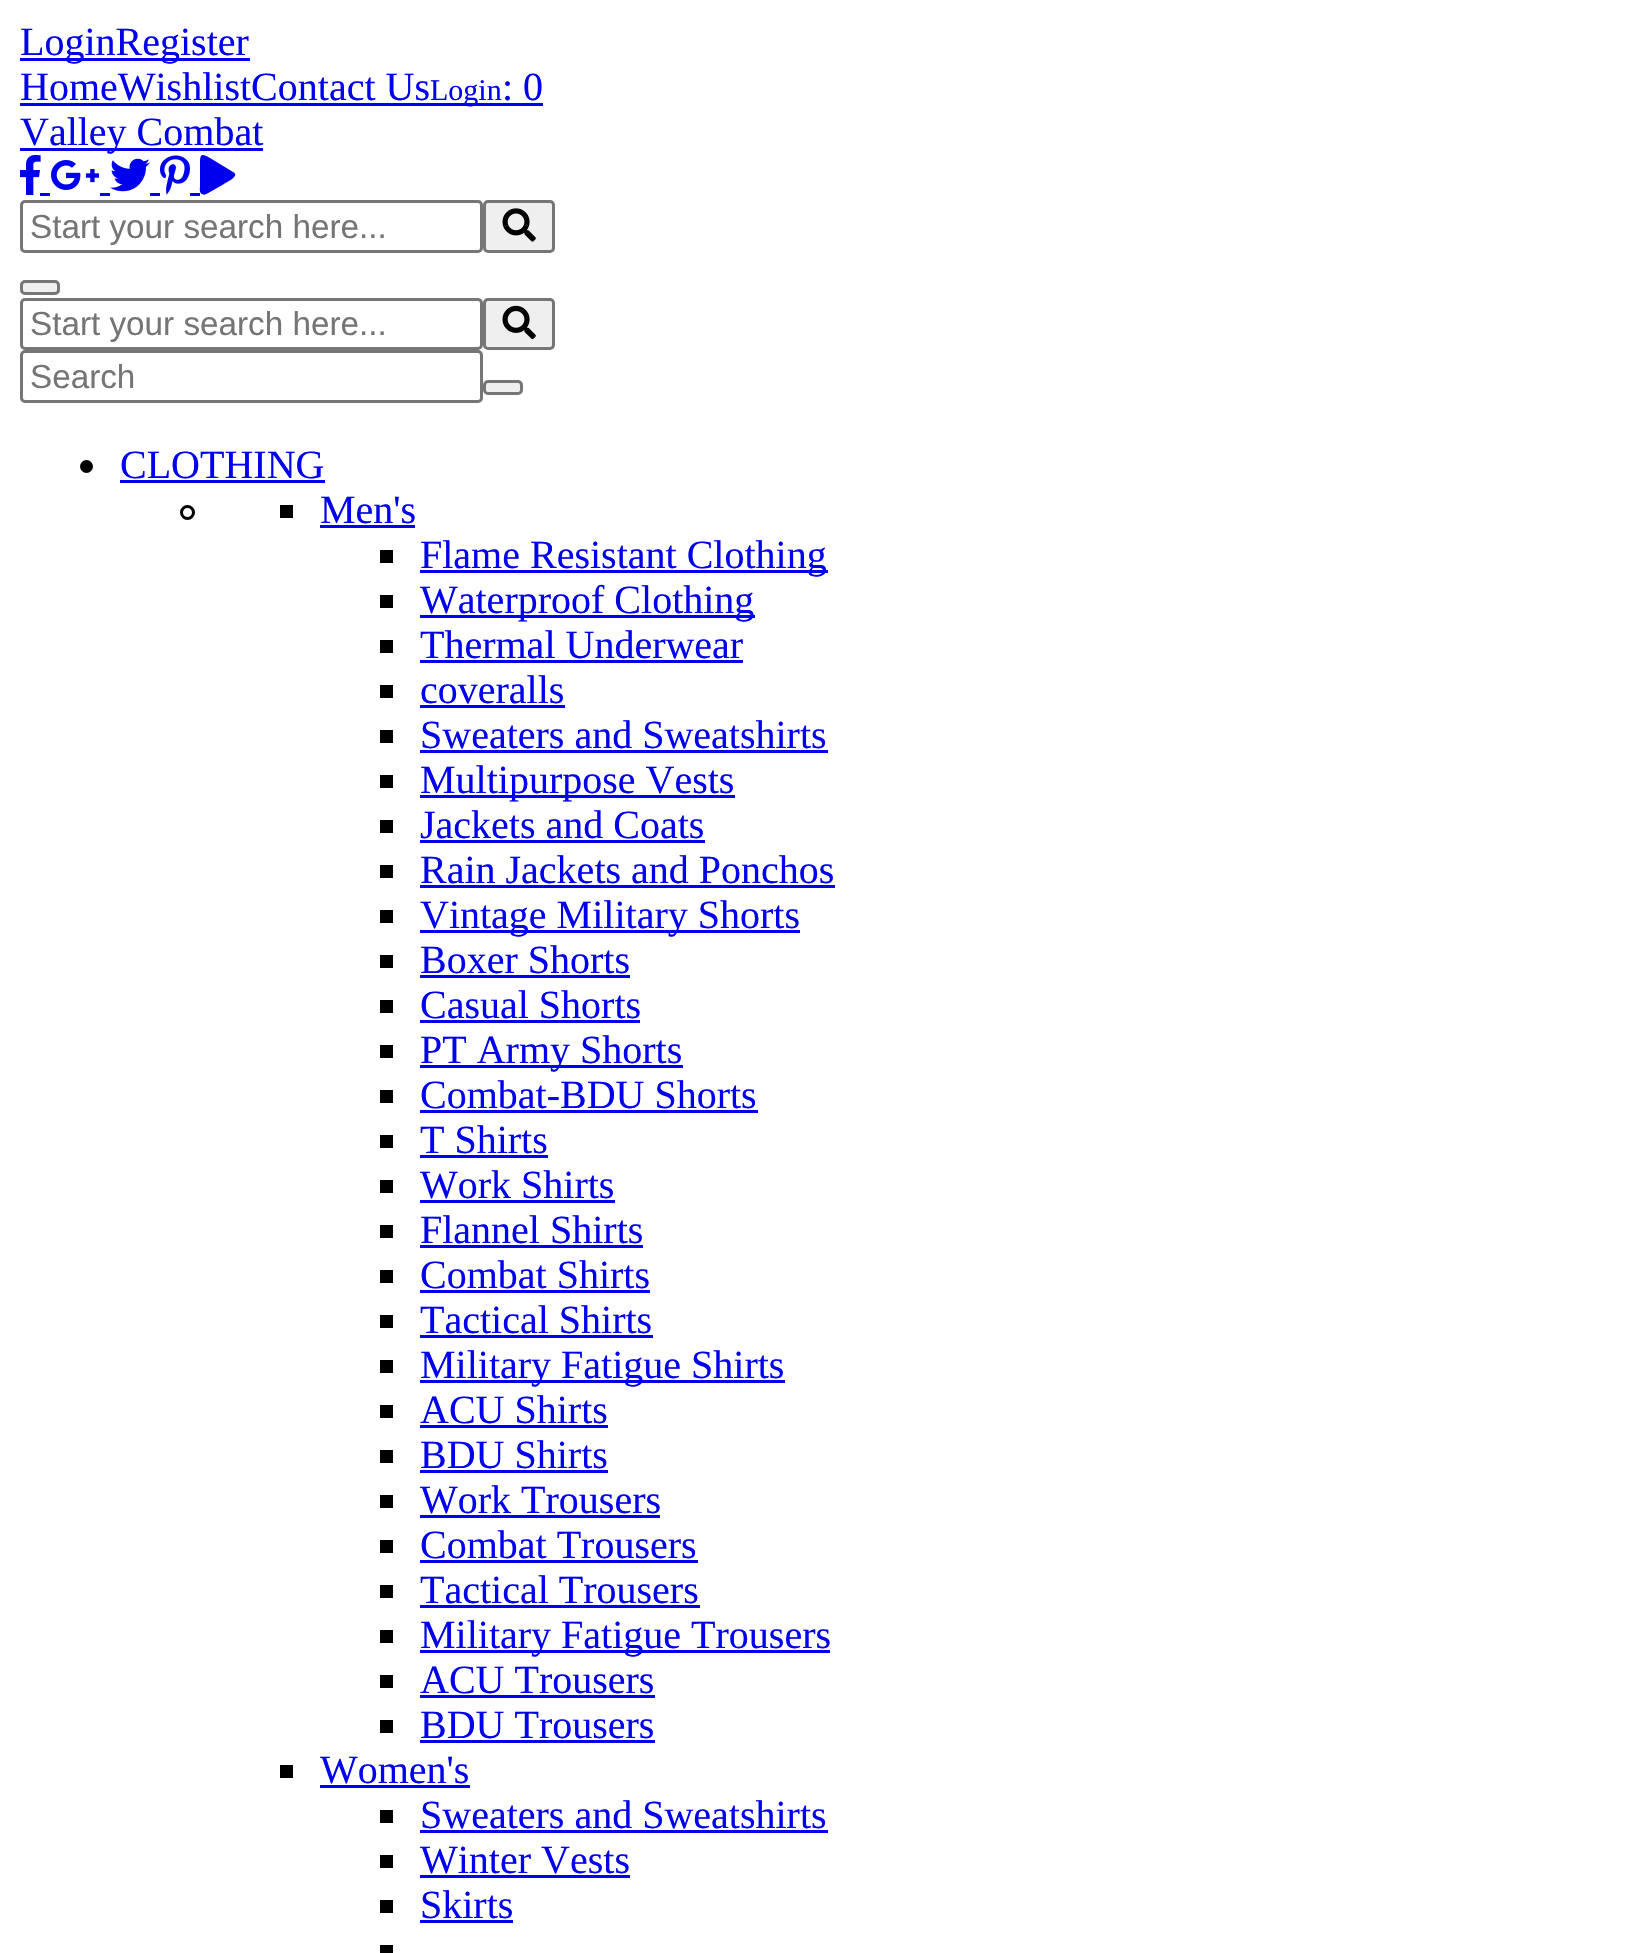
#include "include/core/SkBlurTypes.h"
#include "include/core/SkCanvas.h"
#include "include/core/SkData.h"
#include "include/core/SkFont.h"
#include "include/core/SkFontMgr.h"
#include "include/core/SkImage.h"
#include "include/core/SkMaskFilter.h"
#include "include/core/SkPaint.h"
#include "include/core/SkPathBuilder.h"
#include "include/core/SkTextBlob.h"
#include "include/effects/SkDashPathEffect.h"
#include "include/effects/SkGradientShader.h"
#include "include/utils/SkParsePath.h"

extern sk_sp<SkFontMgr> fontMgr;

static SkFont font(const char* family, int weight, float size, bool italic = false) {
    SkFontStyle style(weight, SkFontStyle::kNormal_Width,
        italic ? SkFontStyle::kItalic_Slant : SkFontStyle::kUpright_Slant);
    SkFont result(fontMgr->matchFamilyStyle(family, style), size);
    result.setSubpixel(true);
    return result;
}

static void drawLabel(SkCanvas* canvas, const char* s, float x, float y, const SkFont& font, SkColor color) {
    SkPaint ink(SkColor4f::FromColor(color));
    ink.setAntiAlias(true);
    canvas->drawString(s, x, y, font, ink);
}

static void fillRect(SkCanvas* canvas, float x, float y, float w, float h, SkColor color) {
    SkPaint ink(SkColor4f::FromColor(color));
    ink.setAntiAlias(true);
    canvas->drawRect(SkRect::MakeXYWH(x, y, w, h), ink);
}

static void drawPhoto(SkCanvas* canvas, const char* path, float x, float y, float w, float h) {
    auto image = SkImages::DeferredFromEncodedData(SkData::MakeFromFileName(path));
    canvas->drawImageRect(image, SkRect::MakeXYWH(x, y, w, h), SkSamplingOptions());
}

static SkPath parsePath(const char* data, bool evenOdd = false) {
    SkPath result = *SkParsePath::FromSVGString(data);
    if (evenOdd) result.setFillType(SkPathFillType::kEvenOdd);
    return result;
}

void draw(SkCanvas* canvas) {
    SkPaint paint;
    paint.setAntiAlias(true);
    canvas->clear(0xFFFFFFFF);
    fillRect(canvas, 20, 58, 230, 3, 0xFF0000EE);
    SkFont font1 = font("Liberation Serif", 400, 40);
    drawLabel(canvas, "LoginRegister", 20, 55, font1, 0xFF0000EE);
    drawLabel(canvas, "HomeWishlistContact Us", 20, 100, font1, 0xFF0000EE);
    fillRect(canvas, 20, 103, 523, 3, 0xFF0000EE);
    SkFont font2 = font("Liberation Serif", 400, 30);
    drawLabel(canvas, "Login", 430, 100, font2, 0xFF0000EE);
    drawLabel(canvas, ": 0", 502, 100, font1, 0xFF0000EE);
    fillRect(canvas, 20, 148, 243, 3, 0xFF0000EE);
    drawLabel(canvas, "Valley Combat", 20, 145, font1, 0xFF0000EE);
    drawPhoto(canvas, "assets/img1.png", 20, 155, 21, 40);
    fillRect(canvas, 40, 193, 10, 3, 0xFF0000EE);
    drawPhoto(canvas, "assets/img2.png", 51, 160, 48, 30);
    fillRect(canvas, 100, 193, 10, 3, 0xFF0000EE);
    drawPhoto(canvas, "assets/img3.png", 110, 158, 40, 34);
    fillRect(canvas, 150, 193, 10, 3, 0xFF0000EE);
    drawPhoto(canvas, "assets/img4.png", 160, 155, 30, 40);
    fillRect(canvas, 190, 193, 10, 3, 0xFF0000EE);
    paint.setColor(0xFF0000EE);
    canvas->drawPath(parsePath("M233 172C241 176 225 183 224 184L210 192C208 193 205 196 202 194C199 193 200 188 200 186V164C200 154 201 153 210 158Z"), paint);
    paint.setStroke(true);
    paint.setStrokeWidth(3);
    paint.setColor(0xFF767676);
    canvas->drawRoundRect(SkRect::MakeXYWH(21.5f, 201.5f, 460, 50), 3.5f, 3.5f, paint);
    SkFont font3 = font("Liberation Sans", 400, 33.25f);
    drawLabel(canvas, "Start your search here...", 30, 238, font3, 0xFF757575);
    paint.setStroke(false);
    paint.setColor(0xFFEFEFEF);
    canvas->drawRoundRect(SkRect::MakeXYWH(484.5f, 201.5f, 69, 50), 3.5f, 3.5f, paint);
    paint.setStroke(true);
    paint.setColor(0xFF767676);
    canvas->drawRoundRect(SkRect::MakeXYWH(484.5f, 201.5f, 69, 50), 3.5f, 3.5f, paint);
    drawPhoto(canvas, "assets/img5.png", 502, 208, 34, 34);
    paint.setStroke(false);
    paint.setColor(0xFFEFEFEF);
    canvas->drawRoundRect(SkRect::MakeXYWH(21.5f, 281.5f, 37, 12), 3.5f, 3.5f, paint);
    paint.setStroke(true);
    paint.setColor(0xFF767676);
    canvas->drawRoundRect(SkRect::MakeXYWH(21.5f, 281.5f, 37, 12), 3.5f, 3.5f, paint);
    canvas->drawRoundRect(SkRect::MakeXYWH(21.5f, 299.5f, 460, 49), 3.5f, 3.5f, paint);
    drawLabel(canvas, "Start your search here...", 30, 335, font3, 0xFF757575);
    paint.setStroke(false);
    paint.setColor(0xFFEFEFEF);
    canvas->drawRoundRect(SkRect::MakeXYWH(484.5f, 299.5f, 69, 49), 3.5f, 3.5f, paint);
    paint.setStroke(true);
    paint.setColor(0xFF767676);
    canvas->drawRoundRect(SkRect::MakeXYWH(484.5f, 299.5f, 69, 49), 3.5f, 3.5f, paint);
    drawPhoto(canvas, "assets/img6.png", 502, 305, 34, 35);
    canvas->drawRoundRect(SkRect::MakeXYWH(21.5f, 351.5f, 460, 50), 3.5f, 3.5f, paint);
    drawLabel(canvas, "Search", 30, 388, font3, 0xFF757575);
    paint.setStroke(false);
    paint.setColor(0xFFEFEFEF);
    canvas->drawRoundRect(SkRect::MakeXYWH(484.5f, 381.5f, 37, 12), 3.5f, 3.5f, paint);
    paint.setStroke(true);
    paint.setColor(0xFF767676);
    canvas->drawRoundRect(SkRect::MakeXYWH(484.5f, 381.5f, 37, 12), 3.5f, 3.5f, paint);
    paint.setStroke(false);
    paint.setColor(0xFF000000);
    canvas->drawCircle(86.5f, 466.5f, 6.5f, paint);
    drawLabel(canvas, "CLOTHING", 120, 478, font1, 0xFF0000EE);
    fillRect(canvas, 120, 480, 205, 3, 0xFF0000EE);
    paint.setStroke(true);
    canvas->drawCircle(187.5f, 512.5f, 6, paint);
    fillRect(canvas, 280, 505, 13, 13, 0xFF000000);
    drawLabel(canvas, "Men's", 320, 523, font1, 0xFF0000EE);
    fillRect(canvas, 320, 525, 95, 3, 0xFF0000EE);
    fillRect(canvas, 380, 550, 13, 13, 0xFF000000);
    fillRect(canvas, 420, 570, 408, 3, 0xFF0000EE);
    drawLabel(canvas, "Flame Resistant Clothing", 420, 568, font1, 0xFF0000EE);
    fillRect(canvas, 380, 595, 13, 13, 0xFF000000);
    fillRect(canvas, 420, 615, 335, 3, 0xFF0000EE);
    drawLabel(canvas, "Waterproof Clothing", 420, 613, font1, 0xFF0000EE);
    fillRect(canvas, 380, 640, 13, 13, 0xFF000000);
    drawLabel(canvas, "Thermal Underwear", 420, 658, font1, 0xFF0000EE);
    fillRect(canvas, 420, 660, 323, 3, 0xFF0000EE);
    fillRect(canvas, 380, 685, 13, 13, 0xFF000000);
    drawLabel(canvas, "coveralls", 420, 703, font1, 0xFF0000EE);
    fillRect(canvas, 420, 705, 145, 3, 0xFF0000EE);
    fillRect(canvas, 380, 730, 13, 13, 0xFF000000);
    drawLabel(canvas, "Sweaters and Sweatshirts", 420, 748, font1, 0xFF0000EE);
    fillRect(canvas, 420, 750, 408, 3, 0xFF0000EE);
    fillRect(canvas, 380, 775, 13, 13, 0xFF000000);
    fillRect(canvas, 420, 795, 315, 3, 0xFF0000EE);
    drawLabel(canvas, "Multipurpose Vests", 420, 793, font1, 0xFF0000EE);
    fillRect(canvas, 380, 820, 13, 13, 0xFF000000);
    drawLabel(canvas, "Jackets and Coats", 420, 838, font1, 0xFF0000EE);
    fillRect(canvas, 420, 840, 285, 3, 0xFF0000EE);
    fillRect(canvas, 380, 865, 13, 13, 0xFF000000);
    drawLabel(canvas, "Rain Jackets and Ponchos", 420, 883, font1, 0xFF0000EE);
    fillRect(canvas, 420, 885, 415, 3, 0xFF0000EE);
    fillRect(canvas, 380, 910, 13, 13, 0xFF000000);
    fillRect(canvas, 420, 930, 380, 3, 0xFF0000EE);
    drawLabel(canvas, "Vintage Military Shorts", 420, 928, font1, 0xFF0000EE);
    fillRect(canvas, 380, 955, 13, 13, 0xFF000000);
    drawLabel(canvas, "Boxer Shorts", 420, 973, font1, 0xFF0000EE);
    fillRect(canvas, 420, 975, 210, 3, 0xFF0000EE);
    fillRect(canvas, 380, 1000, 13, 13, 0xFF000000);
    drawLabel(canvas, "Casual Shorts", 420, 1018, font1, 0xFF0000EE);
    fillRect(canvas, 420, 1020, 220, 3, 0xFF0000EE);
    fillRect(canvas, 380, 1045, 13, 13, 0xFF000000);
    fillRect(canvas, 420, 1065, 263, 3, 0xFF0000EE);
    drawLabel(canvas, "PT Army Shorts", 420, 1063, font1, 0xFF0000EE);
    fillRect(canvas, 380, 1090, 13, 13, 0xFF000000);
    drawLabel(canvas, "Combat-BDU Shorts", 420, 1108, font1, 0xFF0000EE);
    fillRect(canvas, 420, 1110, 338, 3, 0xFF0000EE);
    fillRect(canvas, 380, 1135, 13, 13, 0xFF000000);
    drawLabel(canvas, "T Shirts", 420, 1153, font1, 0xFF0000EE);
    fillRect(canvas, 420, 1155, 128, 3, 0xFF0000EE);
    fillRect(canvas, 380, 1180, 13, 13, 0xFF000000);
    drawLabel(canvas, "Work Shirts", 420, 1198, font1, 0xFF0000EE);
    fillRect(canvas, 420, 1200, 195, 3, 0xFF0000EE);
    fillRect(canvas, 380, 1225, 13, 13, 0xFF000000);
    drawLabel(canvas, "Flannel Shirts", 420, 1243, font1, 0xFF0000EE);
    fillRect(canvas, 420, 1245, 223, 3, 0xFF0000EE);
    fillRect(canvas, 380, 1270, 13, 13, 0xFF000000);
    drawLabel(canvas, "Combat Shirts", 420, 1288, font1, 0xFF0000EE);
    fillRect(canvas, 420, 1290, 230, 3, 0xFF0000EE);
    fillRect(canvas, 380, 1315, 13, 13, 0xFF000000);
    drawLabel(canvas, "Tactical Shirts", 420, 1333, font1, 0xFF0000EE);
    fillRect(canvas, 420, 1335, 233, 3, 0xFF0000EE);
    fillRect(canvas, 380, 1360, 13, 13, 0xFF000000);
    fillRect(canvas, 420, 1380, 365, 3, 0xFF0000EE);
    drawLabel(canvas, "Military Fatigue Shirts", 420, 1378, font1, 0xFF0000EE);
    fillRect(canvas, 380, 1405, 13, 13, 0xFF000000);
    drawLabel(canvas, "ACU Shirts", 420, 1423, font1, 0xFF0000EE);
    fillRect(canvas, 420, 1425, 188, 3, 0xFF0000EE);
    fillRect(canvas, 380, 1450, 13, 13, 0xFF000000);
    drawLabel(canvas, "BDU Shirts", 420, 1468, font1, 0xFF0000EE);
    fillRect(canvas, 420, 1470, 188, 3, 0xFF0000EE);
    fillRect(canvas, 380, 1495, 13, 13, 0xFF000000);
    drawLabel(canvas, "Work Trousers", 420, 1513, font1, 0xFF0000EE);
    fillRect(canvas, 420, 1515, 240, 3, 0xFF0000EE);
    fillRect(canvas, 380, 1540, 13, 13, 0xFF000000);
    drawLabel(canvas, "Combat Trousers", 420, 1558, font1, 0xFF0000EE);
    fillRect(canvas, 420, 1560, 278, 3, 0xFF0000EE);
    fillRect(canvas, 380, 1585, 13, 13, 0xFF000000);
    drawLabel(canvas, "Tactical Trousers", 420, 1603, font1, 0xFF0000EE);
    fillRect(canvas, 420, 1605, 280, 3, 0xFF0000EE);
    fillRect(canvas, 380, 1630, 13, 13, 0xFF000000);
    fillRect(canvas, 420, 1650, 410, 3, 0xFF0000EE);
    drawLabel(canvas, "Military Fatigue Trousers", 420, 1648, font1, 0xFF0000EE);
    fillRect(canvas, 380, 1675, 13, 13, 0xFF000000);
    drawLabel(canvas, "ACU Trousers", 420, 1693, font1, 0xFF0000EE);
    fillRect(canvas, 420, 1695, 235, 3, 0xFF0000EE);
    fillRect(canvas, 380, 1720, 13, 13, 0xFF000000);
    drawLabel(canvas, "BDU Trousers", 420, 1738, font1, 0xFF0000EE);
    fillRect(canvas, 420, 1740, 235, 3, 0xFF0000EE);
    fillRect(canvas, 280, 1765, 13, 13, 0xFF000000);
    drawLabel(canvas, "Women's", 320, 1783, font1, 0xFF0000EE);
    fillRect(canvas, 320, 1785, 150, 3, 0xFF0000EE);
    fillRect(canvas, 380, 1810, 13, 13, 0xFF000000);
    drawLabel(canvas, "Sweaters and Sweatshirts", 420, 1828, font1, 0xFF0000EE);
    fillRect(canvas, 420, 1830, 408, 3, 0xFF0000EE);
    fillRect(canvas, 380, 1855, 13, 13, 0xFF000000);
    drawLabel(canvas, "Winter Vests", 420, 1873, font1, 0xFF0000EE);
    fillRect(canvas, 420, 1875, 210, 3, 0xFF0000EE);
    fillRect(canvas, 380, 1900, 13, 13, 0xFF000000);
    drawLabel(canvas, "Skirts", 420, 1918, font1, 0xFF0000EE);
    fillRect(canvas, 420, 1920, 93, 3, 0xFF0000EE);
    fillRect(canvas, 380, 1945, 13, 8, 0xFF000000);
}
